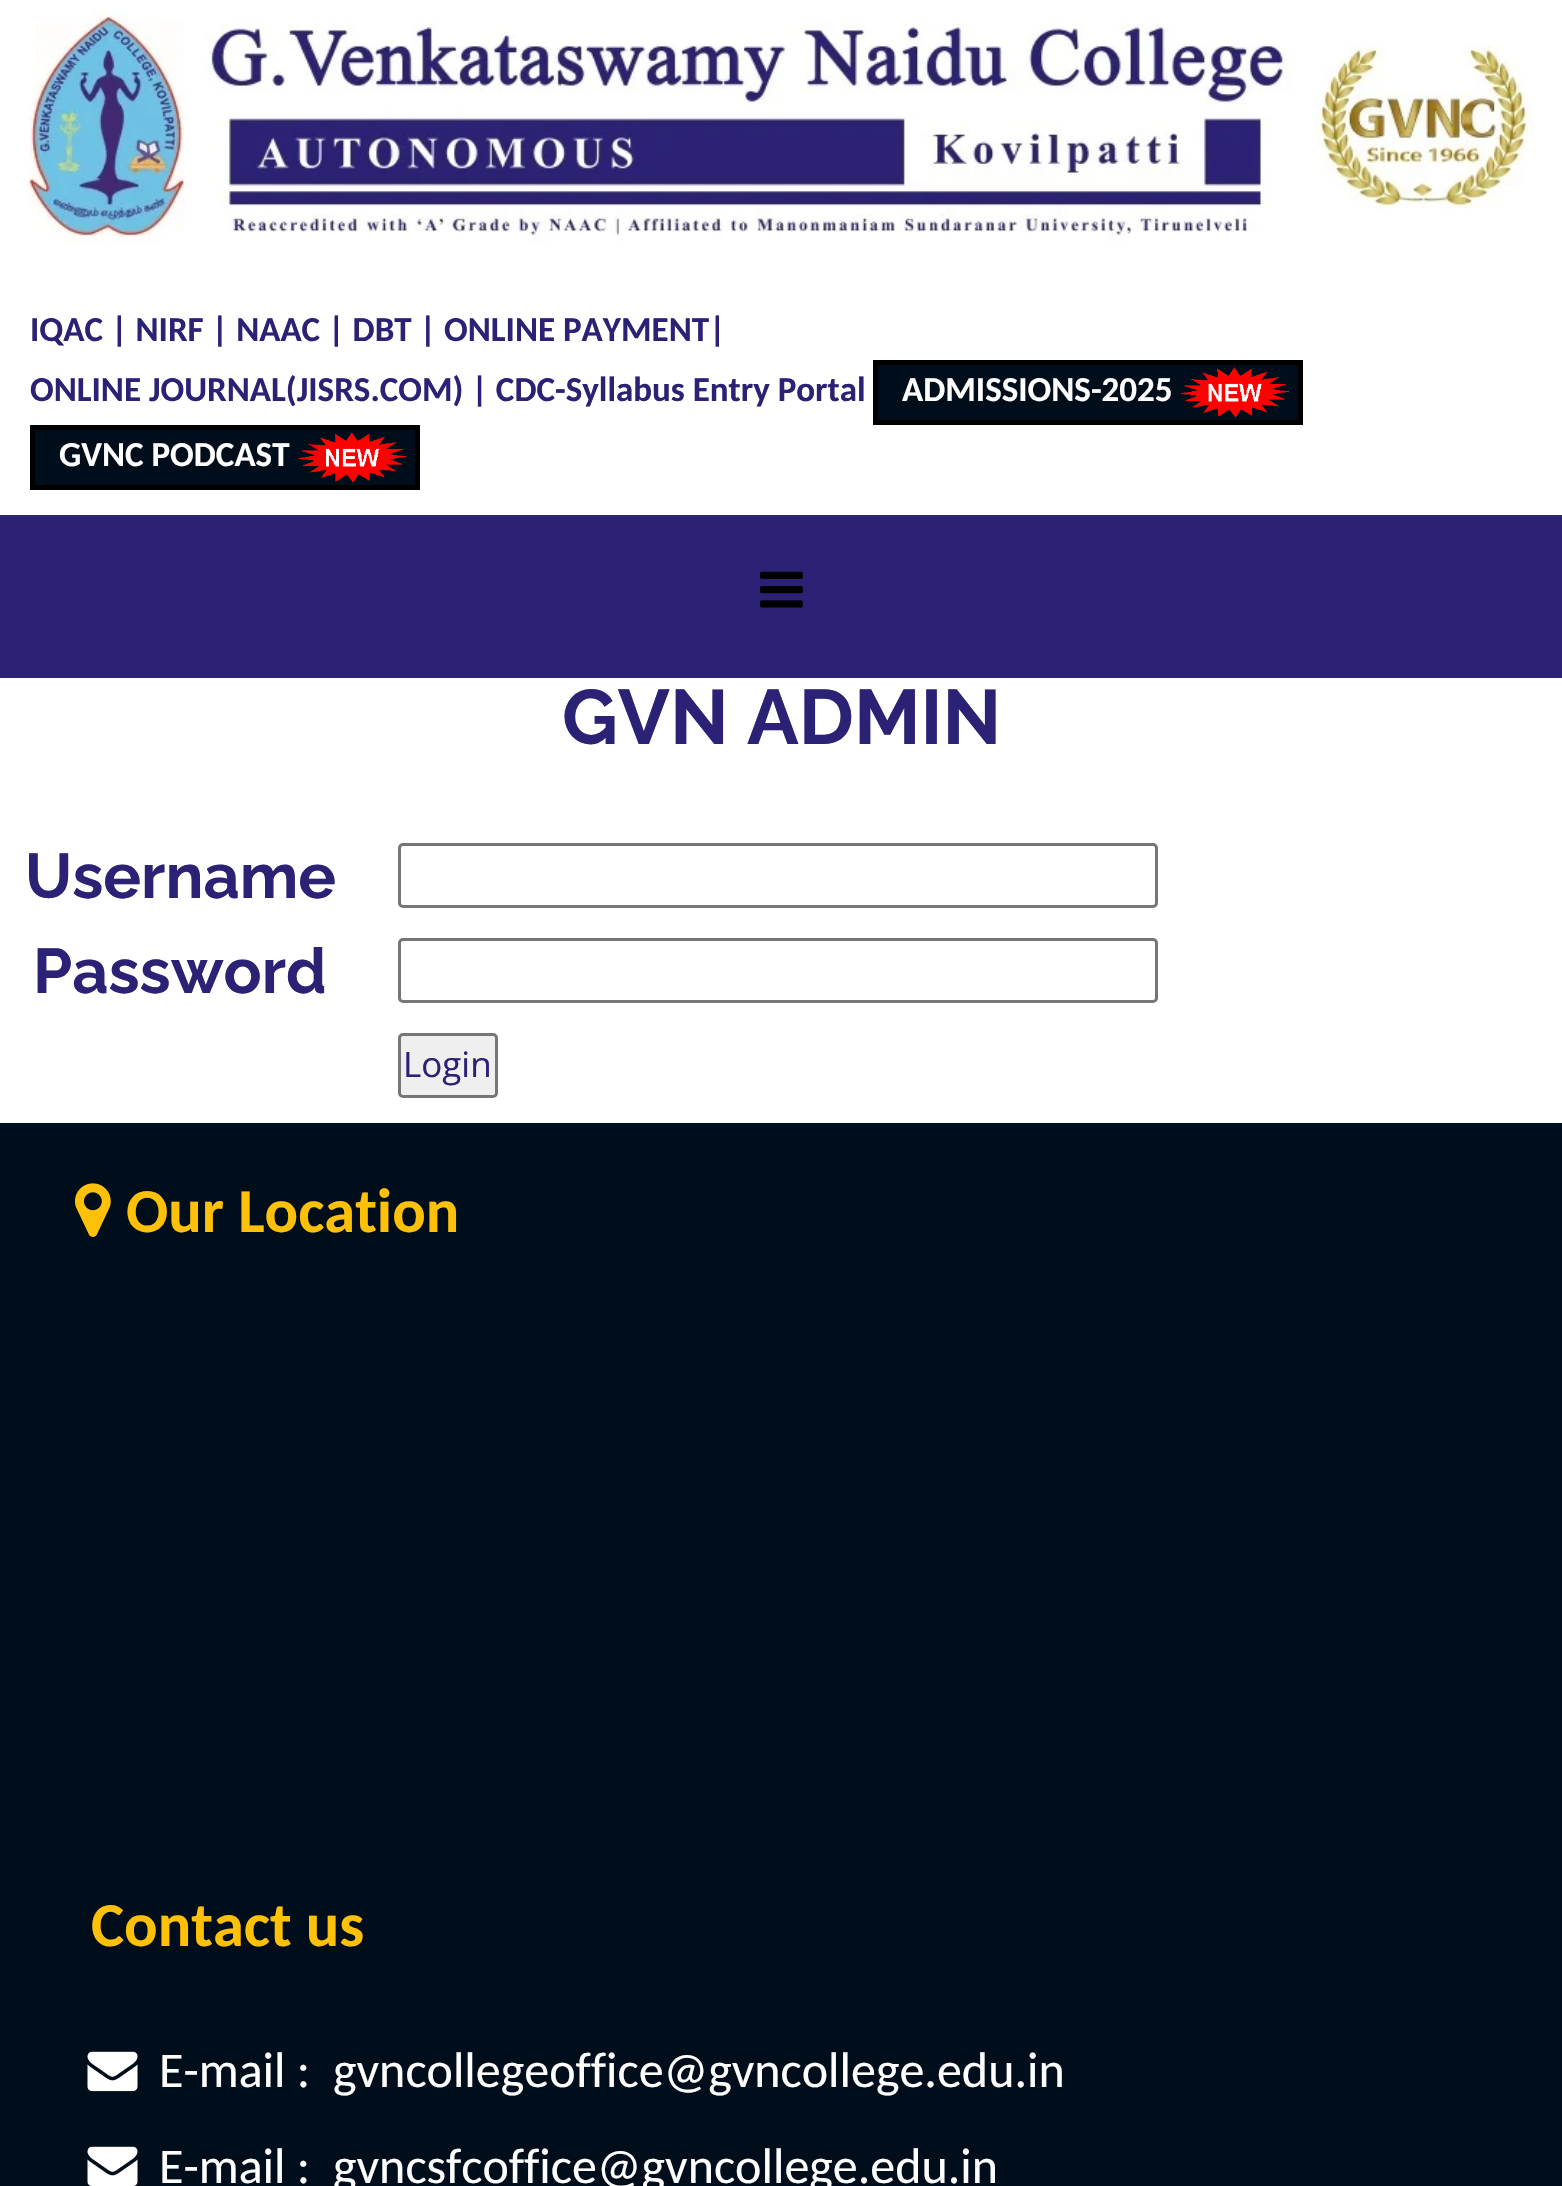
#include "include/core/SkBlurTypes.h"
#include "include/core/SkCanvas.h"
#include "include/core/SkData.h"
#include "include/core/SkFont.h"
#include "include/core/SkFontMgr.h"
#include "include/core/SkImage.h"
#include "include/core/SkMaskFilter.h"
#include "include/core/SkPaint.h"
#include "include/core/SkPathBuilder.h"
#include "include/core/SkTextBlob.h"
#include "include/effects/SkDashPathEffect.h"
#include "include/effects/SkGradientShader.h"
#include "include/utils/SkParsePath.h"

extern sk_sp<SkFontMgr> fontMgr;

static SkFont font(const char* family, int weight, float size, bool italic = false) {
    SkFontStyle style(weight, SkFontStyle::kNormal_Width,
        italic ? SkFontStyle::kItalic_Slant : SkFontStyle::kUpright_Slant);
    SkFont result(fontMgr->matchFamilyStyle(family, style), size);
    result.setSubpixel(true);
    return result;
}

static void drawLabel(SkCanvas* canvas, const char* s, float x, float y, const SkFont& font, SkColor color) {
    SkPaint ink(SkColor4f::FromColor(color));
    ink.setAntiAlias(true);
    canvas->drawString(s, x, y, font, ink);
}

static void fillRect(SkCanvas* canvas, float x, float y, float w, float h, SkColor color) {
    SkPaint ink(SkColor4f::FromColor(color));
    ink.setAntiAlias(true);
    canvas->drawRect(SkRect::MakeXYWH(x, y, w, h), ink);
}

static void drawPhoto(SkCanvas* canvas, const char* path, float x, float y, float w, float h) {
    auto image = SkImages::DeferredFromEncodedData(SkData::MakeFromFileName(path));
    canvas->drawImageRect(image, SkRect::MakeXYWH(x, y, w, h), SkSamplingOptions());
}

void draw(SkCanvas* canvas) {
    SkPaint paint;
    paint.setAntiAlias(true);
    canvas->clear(0xFFFFFFFF);
    drawPhoto(canvas, "assets/img1.png", 23, 11, 1512, 233);
    SkFont font1 = font("Carlito", 700, 35);
    drawLabel(canvas, "IQAC | NIRF | NAAC | DBT | ONLINE PAYMENT|", 30, 341, font1, 0xFF2B2175);
    drawLabel(canvas, "ONLINE JOURNAL(JISRS.COM) | CDC-Syllabus Entry Portal", 30, 401, font1, 0xFF2B2175);
    paint.setColor(0xFF000D1A);
    canvas->drawRect(SkRect::MakeXYWH(875.5f, 362.5f, 425, 60), paint);
    paint.setStroke(true);
    paint.setStrokeWidth(5);
    paint.setColor(0xFF000000);
    canvas->drawRect(SkRect::MakeXYWH(875.5f, 362.5f, 425, 60), paint);
    drawLabel(canvas, "ADMISSIONS-2025", 902, 401, font1, 0xFFFFFFFF);
    drawPhoto(canvas, "assets/img2.png", 1181, 367, 108, 51);
    paint.setStroke(false);
    paint.setColor(0xFF000D1A);
    canvas->drawRect(SkRect::MakeXYWH(32.5f, 427.5f, 385, 60), paint);
    paint.setStroke(true);
    paint.setColor(0xFF000000);
    canvas->drawRect(SkRect::MakeXYWH(32.5f, 427.5f, 385, 60), paint);
    drawLabel(canvas, "GVNC PODCAST", 59, 466, font1, 0xFFFFFFFF);
    drawPhoto(canvas, "assets/img3.png", 298, 432, 109, 51);
    fillRect(canvas, 0, 515, 1562, 163, 0xFF2B2175);
    drawPhoto(canvas, "assets/img4.png", 760, 571, 43, 37);
    SkFont font2 = font("Raleway", 700, 77);
    drawLabel(canvas, "GVN ADMIN", 562, 744, font2, 0xFF2B2175);
    SkFont font3 = font("Raleway", 700, 63);
    drawLabel(canvas, "Username", 25, 898, font3, 0xFF2B2175);
    paint.setStrokeWidth(3);
    paint.setColor(0xFF767676);
    canvas->drawRoundRect(SkRect::MakeXYWH(399.5f, 844.5f, 757, 62), 3.5f, 3.5f, paint);
    drawLabel(canvas, "Password", 33, 993, font3, 0xFF2B2175);
    canvas->drawRoundRect(SkRect::MakeXYWH(399.5f, 939.5f, 757, 62), 3.5f, 3.5f, paint);
    paint.setStroke(false);
    paint.setColor(0xFFEFEFEF);
    canvas->drawRoundRect(SkRect::MakeXYWH(399.5f, 1034.5f, 97, 62), 3.5f, 3.5f, paint);
    paint.setStroke(true);
    paint.setColor(0xFF767676);
    canvas->drawRoundRect(SkRect::MakeXYWH(399.5f, 1034.5f, 97, 62), 3.5f, 3.5f, paint);
    SkFont font4 = font("Open Sans", 400, 35);
    drawLabel(canvas, "Login", 403, 1077, font4, 0xFF2B2175);
    fillRect(canvas, 0, 1123, 1562, 1063, 0xFF000D1A);
    drawPhoto(canvas, "assets/img5.png", 75, 1183, 36, 54);
    SkFont font5 = font("Carlito", 700, 62.5f);
    drawLabel(canvas, "Our Location", 126, 1232, font5, 0xFFFFC107);
    drawLabel(canvas, "Contact us", 91, 1946, font5, 0xFFFFC107);
    drawPhoto(canvas, "assets/img6.png", 87, 2051, 51, 41);
    SkFont font6 = font("Carlito", 400, 50);
    drawLabel(canvas, "E-mail :", 159, 2087, font6, 0xFFFFFFFF);
    drawLabel(canvas, "gvncollegeoffice@gvncollege.edu.in", 333, 2087, font6, 0xFFFFFFFF);
    drawPhoto(canvas, "assets/img7.png", 87, 2146, 51, 40);
    drawLabel(canvas, "E-mail :", 159, 2183, font6, 0xFFFFFFFF);
    drawLabel(canvas, "gvncsfcoffice@gvncollege.edu.in", 333, 2183, font6, 0xFFFFFFFF);
}
